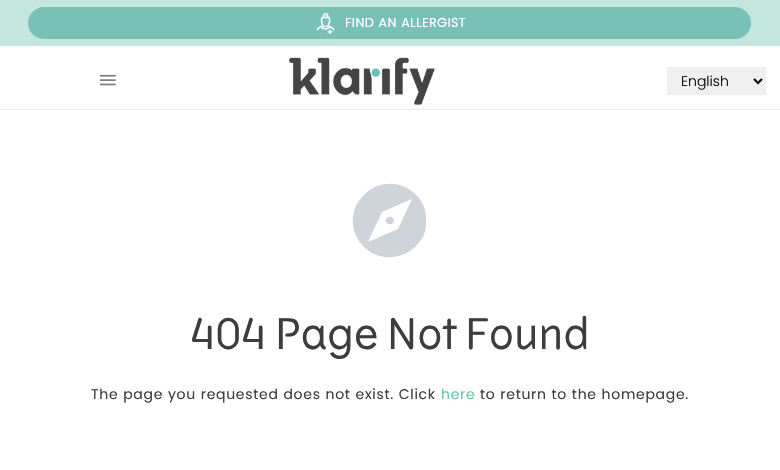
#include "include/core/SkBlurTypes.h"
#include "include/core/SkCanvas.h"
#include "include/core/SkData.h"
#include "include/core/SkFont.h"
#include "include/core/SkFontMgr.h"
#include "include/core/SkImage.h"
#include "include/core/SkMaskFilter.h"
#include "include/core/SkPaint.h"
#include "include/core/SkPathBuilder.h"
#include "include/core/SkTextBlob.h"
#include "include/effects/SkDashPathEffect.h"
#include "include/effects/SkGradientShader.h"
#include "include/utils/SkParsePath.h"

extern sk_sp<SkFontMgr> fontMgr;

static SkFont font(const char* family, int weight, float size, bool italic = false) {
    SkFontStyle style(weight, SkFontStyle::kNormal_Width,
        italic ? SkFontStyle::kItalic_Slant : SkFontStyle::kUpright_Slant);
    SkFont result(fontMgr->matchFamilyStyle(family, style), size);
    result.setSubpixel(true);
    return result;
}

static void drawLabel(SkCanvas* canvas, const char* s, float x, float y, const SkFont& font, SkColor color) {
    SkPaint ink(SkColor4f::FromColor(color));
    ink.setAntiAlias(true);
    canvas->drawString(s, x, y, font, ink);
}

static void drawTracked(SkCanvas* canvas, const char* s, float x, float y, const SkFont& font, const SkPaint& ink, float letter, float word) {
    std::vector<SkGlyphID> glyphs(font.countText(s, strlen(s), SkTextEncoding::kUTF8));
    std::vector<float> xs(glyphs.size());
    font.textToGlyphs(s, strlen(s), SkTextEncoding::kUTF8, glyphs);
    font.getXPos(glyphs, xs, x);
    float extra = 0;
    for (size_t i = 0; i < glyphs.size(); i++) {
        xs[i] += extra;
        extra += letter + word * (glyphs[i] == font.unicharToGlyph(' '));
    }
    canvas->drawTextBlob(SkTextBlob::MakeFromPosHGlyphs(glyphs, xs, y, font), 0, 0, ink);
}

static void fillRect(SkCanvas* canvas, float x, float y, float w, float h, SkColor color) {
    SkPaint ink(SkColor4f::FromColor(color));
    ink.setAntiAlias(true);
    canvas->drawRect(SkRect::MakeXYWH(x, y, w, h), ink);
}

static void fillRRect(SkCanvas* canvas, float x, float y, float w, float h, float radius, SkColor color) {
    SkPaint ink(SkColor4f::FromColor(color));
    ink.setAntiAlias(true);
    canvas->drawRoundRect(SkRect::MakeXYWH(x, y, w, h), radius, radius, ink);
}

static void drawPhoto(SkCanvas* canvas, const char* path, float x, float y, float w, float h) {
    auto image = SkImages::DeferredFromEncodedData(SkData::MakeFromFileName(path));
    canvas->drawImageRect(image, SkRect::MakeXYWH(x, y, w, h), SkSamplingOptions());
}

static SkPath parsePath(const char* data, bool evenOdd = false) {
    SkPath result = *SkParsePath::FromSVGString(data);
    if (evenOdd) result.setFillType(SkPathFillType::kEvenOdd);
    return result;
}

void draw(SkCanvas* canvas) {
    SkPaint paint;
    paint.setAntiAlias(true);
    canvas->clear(0xFFFFFFFF);
    fillRect(canvas, 0, 109, 780, 1, 0xFFEBEBEB);
    fillRect(canvas, 0, 0, 780, 46, 0xFFC4E6DF);
    fillRRect(canvas, 28, 7, 723, 32, 16, 0xFF79C0B7);
    drawPhoto(canvas, "assets/img1.png", 316, 12, 19, 23);
    SkFont font1 = font("Poppins", 700, 12.5f);
    paint.setColor(0xFFFFFFFF);
    drawTracked(canvas, "FIND AN ALLERGIST", 345, 27, font1, paint, 0.7f, 0);
    drawPhoto(canvas, "assets/img2.png", 100, 74, 16, 12);
    drawPhoto(canvas, "assets/img3.png", 289, 57, 146, 48);
    fillRect(canvas, 667, 67, 99, 28, 0xFFEFEFEF);
    paint.setStroke(true);
    paint.setStrokeWidth(2);
    paint.setColor(0xFF000000);
    canvas->drawPath(parsePath("M754 79L758 83L762 79"), paint);
    SkFont font2 = font("Poppins", 300, 14);
    drawLabel(canvas, "English", 681, 86, font2, 0xFF000000);
    paint.setStroke(false);
    paint.setColor(0xFFCED4DA);
    canvas->drawPath(parsePath("M387 218C391 214 396 220 393 223C389 227 383 221 387 218ZM364 195C388 170 430 190 426 224C426 233 422 240 416 246C410 252 402 256 393 257C359 260 339 219 364 195ZM398 229L412 199L382 212L368 242Z"), paint);
    SkFont font3 = font("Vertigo", 400, 42);
    drawLabel(canvas, "404 Page Not Found", 190, 349, font3, 0xFF3D3D3D);
    SkFont font4 = font("Poppins", 400, 14);
    paint.setColor(0xFF3D3D3D);
    drawTracked(canvas, "The page you requested does not exist. Click", 91, 399, font4, paint, 0.7f, 0);
    paint.setColor(0xFF67C3B7);
    drawTracked(canvas, "here", 441, 399, font4, paint, 0.7f, 0);
    paint.setColor(0xFF3D3D3D);
    drawTracked(canvas, "to return to the homepage.", 480, 399, font4, paint, 0.7f, 0);
}
